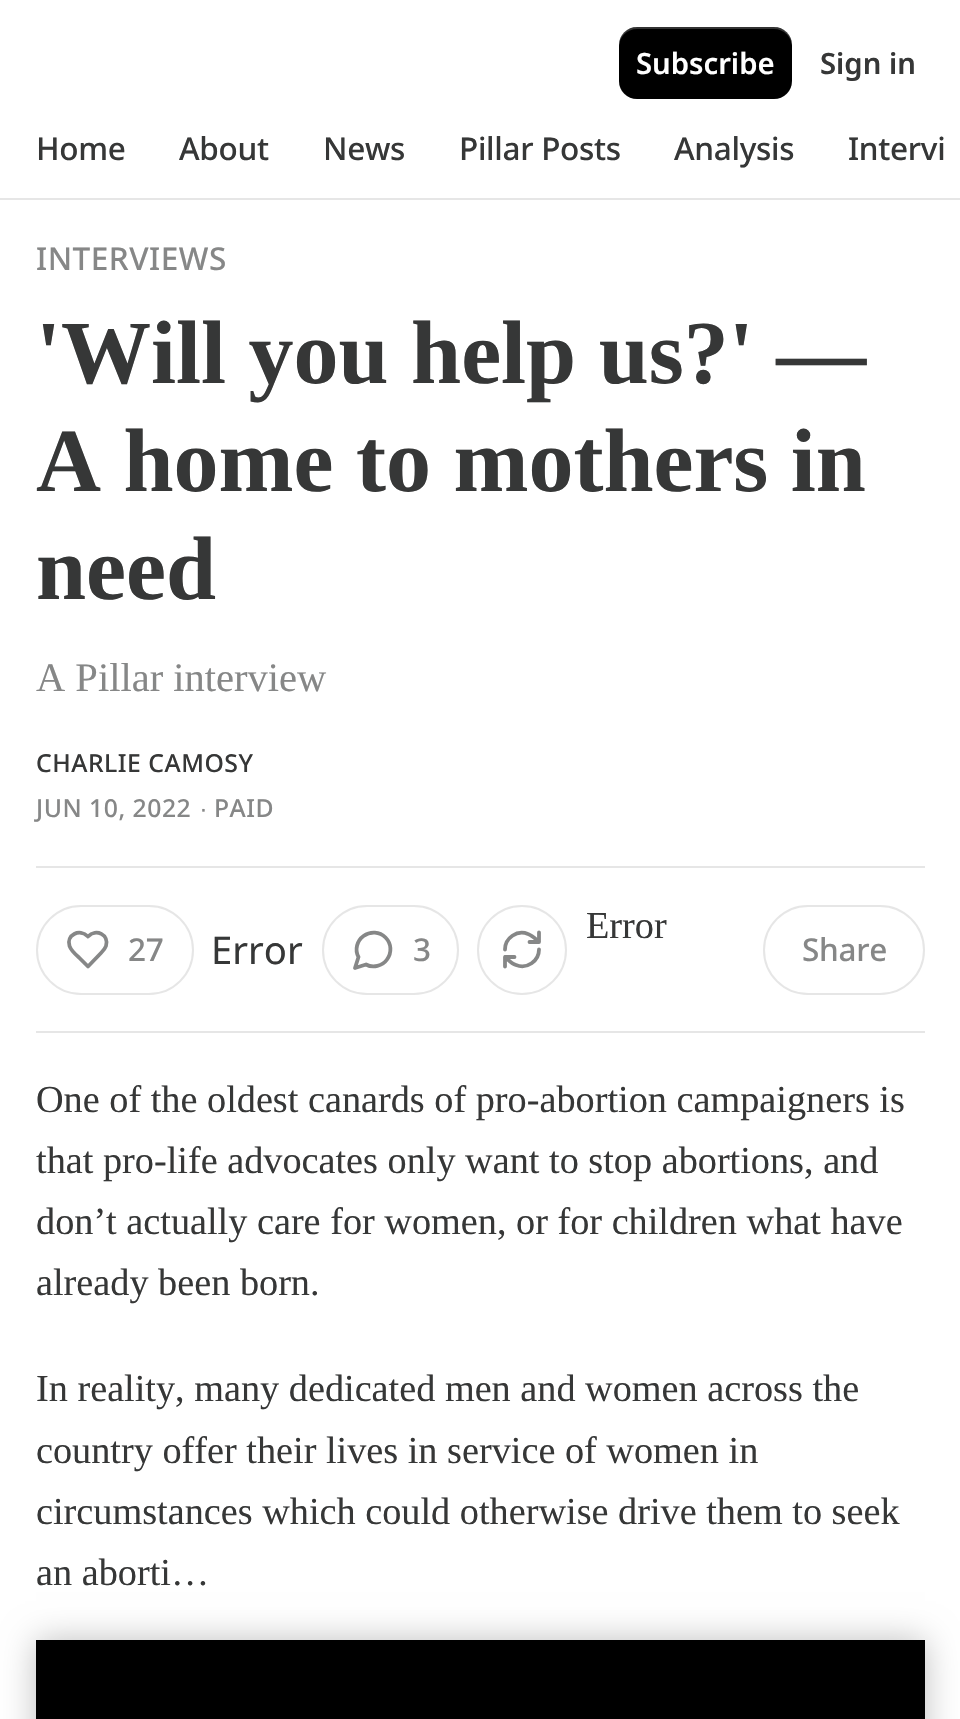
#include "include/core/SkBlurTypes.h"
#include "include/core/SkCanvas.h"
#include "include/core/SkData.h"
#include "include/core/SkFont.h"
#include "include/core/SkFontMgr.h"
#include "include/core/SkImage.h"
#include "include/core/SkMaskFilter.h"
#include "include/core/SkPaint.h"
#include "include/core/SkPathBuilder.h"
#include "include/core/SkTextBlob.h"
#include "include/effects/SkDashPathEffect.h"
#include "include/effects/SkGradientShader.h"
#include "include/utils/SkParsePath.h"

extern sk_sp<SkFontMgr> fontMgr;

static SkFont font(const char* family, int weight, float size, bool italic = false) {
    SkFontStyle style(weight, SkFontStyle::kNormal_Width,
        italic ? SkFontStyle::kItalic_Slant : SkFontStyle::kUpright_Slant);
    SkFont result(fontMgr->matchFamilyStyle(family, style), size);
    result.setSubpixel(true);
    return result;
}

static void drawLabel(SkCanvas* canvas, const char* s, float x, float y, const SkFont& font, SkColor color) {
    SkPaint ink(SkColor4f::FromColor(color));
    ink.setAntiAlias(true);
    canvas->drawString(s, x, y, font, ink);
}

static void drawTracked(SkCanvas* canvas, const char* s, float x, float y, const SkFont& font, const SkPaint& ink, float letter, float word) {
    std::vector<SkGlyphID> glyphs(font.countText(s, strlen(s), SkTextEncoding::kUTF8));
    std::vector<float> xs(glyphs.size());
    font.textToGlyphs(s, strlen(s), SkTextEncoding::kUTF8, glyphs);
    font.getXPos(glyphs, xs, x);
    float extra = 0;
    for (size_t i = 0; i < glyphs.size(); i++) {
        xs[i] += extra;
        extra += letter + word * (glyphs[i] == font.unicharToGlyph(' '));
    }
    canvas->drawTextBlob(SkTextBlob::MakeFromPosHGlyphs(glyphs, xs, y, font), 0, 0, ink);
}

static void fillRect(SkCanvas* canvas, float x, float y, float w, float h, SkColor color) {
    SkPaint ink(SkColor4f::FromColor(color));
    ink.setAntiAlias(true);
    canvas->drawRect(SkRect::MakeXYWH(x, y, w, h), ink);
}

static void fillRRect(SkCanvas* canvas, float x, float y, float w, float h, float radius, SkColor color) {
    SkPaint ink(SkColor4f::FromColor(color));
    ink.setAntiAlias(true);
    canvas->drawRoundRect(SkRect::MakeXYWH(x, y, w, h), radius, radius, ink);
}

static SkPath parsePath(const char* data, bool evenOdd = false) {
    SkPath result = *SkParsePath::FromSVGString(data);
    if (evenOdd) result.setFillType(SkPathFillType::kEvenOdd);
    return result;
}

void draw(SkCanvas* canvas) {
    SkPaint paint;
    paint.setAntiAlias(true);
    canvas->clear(0xFFFFFFFF);
    fillRRect(canvas, 619, 27, 173, 72, 18, 0xFF000000);
    paint.setColor(0x1A000000);
    canvas->drawPath(parsePath("M619 79C619 104 642 99 660 99H751C769 99 792 104 792 79C792 89 784 97 774 97H637C627 97 619 89 619 79Z"), paint);
    paint.setColor(0x33FFFFFF);
    canvas->drawPath(parsePath("M637 29H774C784 29 792 37 792 47C792 22 769 27 751 27H660C642 27 619 22 619 47C619 37 627 29 637 29Z"), paint);
    SkFont font1 = font("Noto Sans", 600, 29.25f);
    drawLabel(canvas, "Subscribe", 636, 74, font1, 0xFFFFFFFF);
    drawLabel(canvas, "Sign in", 820, 74, font1, 0xFF363737);
    fillRect(canvas, 0, 198, 960, 2, 0xFFE6E6E6);
    SkFont font2 = font("Noto Sans", 500, 31.5f);
    paint.setColor(0xFF363737);
    drawTracked(canvas, "Home", 36, 160, font2, paint, -0.3f, 0);
    drawTracked(canvas, "About", 179, 160, font2, paint, -0.3f, 0);
    drawTracked(canvas, "News", 323, 160, font2, paint, -0.3f, 0);
    fillRect(canvas, 637, 99, 137, 1, 0xFFFFFFFF);
    drawTracked(canvas, "Pillar Posts", 459, 160, font2, paint, -0.3f, 0);
    drawTracked(canvas, "Analysis", 674, 160, font2, paint, -0.3f, 0);
    drawTracked(canvas, "Intervi", 848, 160, font2, paint, -0.3f, 0);
    paint.setColor(0xFF868787);
    drawTracked(canvas, "INTERVIEWS", 36, 270, font2, paint, 0.5f, 0);
    SkFont font3 = font("Liberation Serif", 700, 90);
    drawLabel(canvas, "'Will you help us?' —", 36, 383, font3, 0xFF363737);
    drawLabel(canvas, "A home to mothers in", 36, 491, font3, 0xFF363737);
    drawLabel(canvas, "need", 36, 599, font3, 0xFF363737);
    SkFont font4 = font("Liberation Serif", 400, 40.5f);
    drawLabel(canvas, "A Pillar interview", 36, 691, font4, 0xFF868787);
    SkFont font5 = font("Noto Sans", 500, 24.75f);
    paint.setColor(0xFF363737);
    drawTracked(canvas, "CHARLIE CAMOSY", 36, 772, font5, paint, 0.5f, 0);
    paint.setColor(0xFF868787);
    drawTracked(canvas, "JUN 10, 2022", 36, 817, font5, paint, 0.5f, 0);
    SkFont font6 = font("Liberation Sans", 400, 24.75f);
    drawTracked(canvas, "∙", 200, 817, font6, paint, 0.5f, 0);
    drawTracked(canvas, "PAID", 214, 817, font5, paint, 0.5f, 0);
    fillRect(canvas, 36, 866, 889, 2, 0xFFE6E6E6);
    fillRect(canvas, 36, 1031, 889, 2, 0xFFE6E6E6);
    paint.setStroke(true);
    paint.setStrokeWidth(2);
    paint.setColor(0xFFE6E6E6);
    canvas->drawCircle(522, 950, 44, paint);
    paint.setStrokeWidth(3.8f);
    paint.setStrokeCap(SkPaint::kRound_Cap);
    paint.setStrokeJoin(SkPaint::kRound_Join);
    paint.setColor(0xFF868787);
    canvas->drawPath(parsePath("M539 932.5V942M539 942H529.5M539 942C535.5 939 532.5 935.5 528 934C517 929.5 505 938 505 949.5M505 966.5V957M505 957H514.5M505 957C508.5 960 511.5 963.5 516 965C527 969.5 539 961 539 949.5"), paint);
    SkFont font7 = font("Liberation Serif", 400, 38.25f);
    drawLabel(canvas, "Error", 586, 938, font7, 0xFF363737);
    paint.setStrokeWidth(2);
    paint.setStrokeCap(SkPaint::kButt_Cap);
    paint.setStrokeJoin(SkPaint::kMiter_Join);
    paint.setColor(0xFFE6E6E6);
    canvas->drawRoundRect(SkRect::MakeXYWH(37, 906, 156, 88), 44, 44, paint);
    paint.setStrokeWidth(3.8f);
    paint.setStrokeCap(SkPaint::kRound_Cap);
    paint.setStrokeJoin(SkPaint::kRound_Join);
    paint.setColor(0xFF868787);
    canvas->drawPath(parsePath("M101 953C103 951 105 949 106 946C109.5 935 96 928 88 936.5C79.5 928 66 935 69.5 946C71 950.5 75.5 954.5 79 957.5L88 966.5Z"), paint);
    paint.setStroke(false);
    drawTracked(canvas, "27", 128, 961, font2, paint, -0.3f, 0);
    SkFont font8 = font("Noto Sans", 400, 38.25f);
    drawLabel(canvas, "Error", 211, 964, font8, 0xFF363737);
    paint.setStroke(true);
    paint.setStrokeWidth(2);
    paint.setStrokeCap(SkPaint::kButt_Cap);
    paint.setStrokeJoin(SkPaint::kMiter_Join);
    paint.setColor(0xFFE6E6E6);
    canvas->drawRoundRect(SkRect::MakeXYWH(323, 906, 135, 88), 44, 44, paint);
    paint.setStrokeWidth(3.8f);
    paint.setStrokeCap(SkPaint::kRound_Cap);
    paint.setStrokeJoin(SkPaint::kRound_Join);
    paint.setColor(0xFF868787);
    canvas->drawPath(parsePath("M366 964.5C373 968.5 382.5 966 387 959.5C392 952.5 391.5 943.5 385.5 937.5C379.5 931.5 370.5 931 363.5 936C357 940.5 354.5 950 358.5 957L355 968Z"), paint);
    paint.setStroke(false);
    drawTracked(canvas, "3", 413, 961, font2, paint, -0.3f, 0);
    paint.setStroke(true);
    paint.setStrokeWidth(2);
    paint.setStrokeCap(SkPaint::kButt_Cap);
    paint.setStrokeJoin(SkPaint::kMiter_Join);
    paint.setColor(0xFFE6E6E6);
    canvas->drawRoundRect(SkRect::MakeXYWH(764, 906, 160, 88), 44, 44, paint);
    paint.setStroke(false);
    paint.setColor(0xFF868787);
    drawTracked(canvas, "Share", 802, 961, font2, paint, -0.3f, 0);
    drawLabel(canvas, "One of the oldest canards of pro-abortion campaigners is", 36, 1112, font7, 0xFF363737);
    drawLabel(canvas, "that pro-life advocates only want to stop abortions, and", 36, 1173, font7, 0xFF363737);
    drawLabel(canvas, "don’t actually care for women, or for children what have", 36, 1234, font7, 0xFF363737);
    drawLabel(canvas, "already been born.", 36, 1295, font7, 0xFF363737);
    drawLabel(canvas, "In reality, many dedicated men and women across the", 36, 1401, font7, 0xFF363737);
    drawLabel(canvas, "country offer their lives in service of women in", 36, 1463, font7, 0xFF363737);
    drawLabel(canvas, "circumstances which could otherwise drive them to seek", 36, 1524, font7, 0xFF363737);
    drawLabel(canvas, "an aborti…", 36, 1585, font7, 0xFF363737);
    fillRect(canvas, 36, 1640, 889, 79, 0xFF000000);
    canvas->save();
    canvas->clipPath(parsePath("M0 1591H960V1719H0ZM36 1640H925V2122H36Z", true), true);
    paint.setColor(0x40000000);
    paint.setMaskFilter(SkMaskFilter::MakeBlur(kNormal_SkBlurStyle, 16));
    canvas->drawRect(SkRect::MakeXYWH(36, 1640, 889, 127), paint);
    paint.setMaskFilter(nullptr);
    canvas->restore();
}
